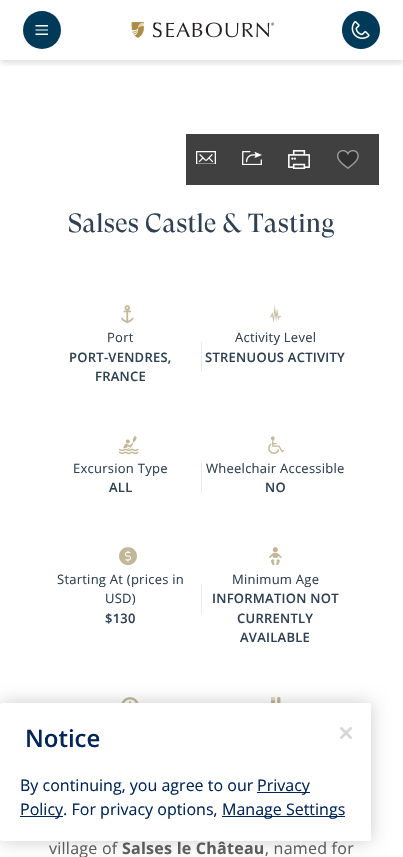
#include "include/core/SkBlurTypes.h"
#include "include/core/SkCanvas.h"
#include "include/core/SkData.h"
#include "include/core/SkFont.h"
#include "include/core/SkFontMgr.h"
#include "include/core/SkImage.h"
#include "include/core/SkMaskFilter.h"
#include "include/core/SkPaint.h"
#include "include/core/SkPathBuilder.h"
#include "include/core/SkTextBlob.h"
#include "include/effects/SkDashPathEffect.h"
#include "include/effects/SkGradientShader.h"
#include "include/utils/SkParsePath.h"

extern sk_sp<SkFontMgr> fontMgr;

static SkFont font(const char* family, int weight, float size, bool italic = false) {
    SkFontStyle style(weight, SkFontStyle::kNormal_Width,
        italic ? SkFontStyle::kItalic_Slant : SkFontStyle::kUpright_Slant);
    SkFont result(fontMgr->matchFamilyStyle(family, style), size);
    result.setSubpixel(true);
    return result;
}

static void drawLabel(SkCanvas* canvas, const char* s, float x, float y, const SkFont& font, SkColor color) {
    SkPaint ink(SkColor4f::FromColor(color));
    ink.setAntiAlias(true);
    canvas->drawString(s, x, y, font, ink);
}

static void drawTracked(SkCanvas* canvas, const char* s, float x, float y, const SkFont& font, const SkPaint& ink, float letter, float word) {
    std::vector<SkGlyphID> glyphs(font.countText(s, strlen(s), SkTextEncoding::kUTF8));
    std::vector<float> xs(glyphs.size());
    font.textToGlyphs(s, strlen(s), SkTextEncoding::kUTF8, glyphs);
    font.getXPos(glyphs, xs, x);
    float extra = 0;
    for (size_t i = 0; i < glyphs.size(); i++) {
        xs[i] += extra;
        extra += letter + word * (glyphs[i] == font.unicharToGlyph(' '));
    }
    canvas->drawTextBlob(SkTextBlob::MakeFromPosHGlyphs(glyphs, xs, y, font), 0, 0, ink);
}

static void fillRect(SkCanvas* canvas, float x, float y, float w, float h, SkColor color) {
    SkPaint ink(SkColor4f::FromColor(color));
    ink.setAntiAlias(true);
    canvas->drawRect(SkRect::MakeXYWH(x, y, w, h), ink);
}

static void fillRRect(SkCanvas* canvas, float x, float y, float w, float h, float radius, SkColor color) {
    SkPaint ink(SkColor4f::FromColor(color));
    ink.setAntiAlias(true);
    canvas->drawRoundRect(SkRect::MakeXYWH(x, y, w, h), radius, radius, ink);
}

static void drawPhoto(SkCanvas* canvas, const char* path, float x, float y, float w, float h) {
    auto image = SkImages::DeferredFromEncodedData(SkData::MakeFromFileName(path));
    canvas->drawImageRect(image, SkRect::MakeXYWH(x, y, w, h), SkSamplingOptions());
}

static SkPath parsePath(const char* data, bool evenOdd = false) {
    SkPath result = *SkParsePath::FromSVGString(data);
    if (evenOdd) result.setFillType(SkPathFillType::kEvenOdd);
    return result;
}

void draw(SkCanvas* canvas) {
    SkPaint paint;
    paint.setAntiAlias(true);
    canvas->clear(0xFFFFFFFF);
    canvas->save();
    canvas->clipRect(SkRect::MakeXYWH(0, 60, 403, 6));
    paint.setColor(0x29333333);
    paint.setMaskFilter(SkMaskFilter::MakeBlur(kNormal_SkBlurStyle, 3));
    canvas->drawRect(SkRect::MakeXYWH(0, 3, 403, 60), paint);
    paint.setMaskFilter(nullptr);
    canvas->restore();
    paint.setColor(0xFF003A59);
    canvas->drawCircle(42, 30, 19, paint);
    paint.setColor(0xFFFFFFFF);
    canvas->drawPath(parsePath("M48 25H35.5V26.5H48ZM48 29.5H35.5V30.5H48ZM48 33.5H35.5V35H48Z"), paint);
    drawPhoto(canvas, "assets/img1.png", 131, 22, 143, 16);
    drawPhoto(canvas, "assets/img2.png", 342, 11, 38, 38);
    fillRect(canvas, 186, 134, 193, 51, 0xFF404040);
    drawPhoto(canvas, "assets/img3.png", 196, 151, 20, 13);
    drawPhoto(canvas, "assets/img4.png", 242, 151, 20, 14);
    drawPhoto(canvas, "assets/img5.png", 288, 150, 22, 19);
    drawPhoto(canvas, "assets/img6.png", 337, 150, 22, 19);
    SkFont font1 = font("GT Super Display", 400, 26);
    paint.setColor(0xFF304153);
    drawTracked(canvas, "Salses Castle & Tasting", 68, 232, font1, paint, 0.25f, 0);
    drawPhoto(canvas, "assets/img7.png", 121, 305, 13, 19);
    SkFont font2 = font("Open Sans", 400, 13);
    drawTracked(canvas, "Port", 107, 342, font2, paint, 0.25f, 0);
    SkFont font3 = font("Open Sans", 600, 13);
    drawTracked(canvas, "PORT-VENDRES,", 69, 362, font3, paint, 0.25f, 0);
    drawTracked(canvas, "FRANCE", 95, 381, font3, paint, 0.25f, 0);
    fillRect(canvas, 201, 342, 1, 30, 0xFFE8E9E9);
    drawPhoto(canvas, "assets/img8.png", 270, 305, 12, 18);
    drawTracked(canvas, "Activity Level", 235, 342, font2, paint, 0.25f, 0);
    drawTracked(canvas, "STRENUOUS ACTIVITY", 205, 362, font3, paint, 0.25f, 0);
    drawPhoto(canvas, "assets/img9.png", 119, 436, 20, 19);
    drawTracked(canvas, "Excursion Type", 73, 473, font2, paint, 0.25f, 0);
    fillRect(canvas, 201, 463, 1, 30, 0xFFE8E9E9);
    drawTracked(canvas, "ALL", 109, 492, font3, paint, 0.25f, 0);
    drawPhoto(canvas, "assets/img10.png", 268, 436, 17, 18);
    drawTracked(canvas, "Wheelchair Accessible", 206, 473, font2, paint, 0.25f, 0);
    drawTracked(canvas, "NO", 265, 492, font3, paint, 0.25f, 0);
    drawPhoto(canvas, "assets/img11.png", 119, 547, 18, 19);
    drawTracked(canvas, "Starting At (prices in", 57, 584, font2, paint, 0.25f, 0);
    drawTracked(canvas, "USD)", 105, 603, font2, paint, 0.25f, 0);
    fillRect(canvas, 201, 584, 1, 30, 0xFFE8E9E9);
    drawTracked(canvas, "$130", 105, 623, font3, paint, 0.25f, 0);
    drawPhoto(canvas, "assets/img12.png", 269, 547, 13, 19);
    drawTracked(canvas, "Minimum Age", 232, 584, font2, paint, 0.25f, 0);
    drawTracked(canvas, "INFORMATION NOT", 212, 603, font3, paint, 0.25f, 0);
    drawTracked(canvas, "CURRENTLY", 237, 623, font3, paint, 0.25f, 0);
    drawTracked(canvas, "AVAILABLE", 240, 642, font3, paint, 0.25f, 0);
    drawPhoto(canvas, "assets/img13.png", 121, 697, 18, 6);
    drawPhoto(canvas, "assets/img14.png", 271, 697, 10, 6);
    SkFont font4 = font("Open Sans", 400, 16);
    paint.setColor(0xFF606060);
    drawTracked(canvas, "village of", 49, 854, font4, paint, 0.25f, 0);
    SkFont font5 = font("Open Sans", 700, 16);
    drawTracked(canvas, "Salses le Château", 122, 854, font5, paint, 0.25f, 0);
    drawTracked(canvas, ", named for", 265, 854, font4, paint, 0.25f, 0);
    paint.setColor(0x33000000);
    paint.setMaskFilter(SkMaskFilter::MakeBlur(kNormal_SkBlurStyle, 9));
    canvas->drawRoundRect(SkRect::MakeXYWH(0, 703, 371, 138), 2.5f, 2.5f, paint);
    paint.setMaskFilter(nullptr);
    fillRRect(canvas, 0, 703, 371, 138, 2.5f, 0xFFFFFFFF);
    SkFont font6 = font("Open Sans", 600, 24);
    drawLabel(canvas, "Notice", 25, 747, font6, 0xFF022658);
    drawLabel(canvas, "By continuing, you agree to our", 20, 791, font4, 0xFF022658);
    fillRect(canvas, 257, 792, 53, 1, 0xFF022658);
    drawLabel(canvas, "Privacy", 257, 791, font4, 0xFF022658);
    fillRect(canvas, 20, 816, 43, 1, 0xFF022658);
    drawLabel(canvas, "Policy. For privacy options,", 20, 815, font4, 0xFF022658);
    fillRect(canvas, 222, 816, 123, 1, 0xFF022658);
    drawLabel(canvas, "Manage Settings", 222, 815, font4, 0xFF022658);
    drawPhoto(canvas, "assets/img15.png", 340, 727, 12, 12);
}
